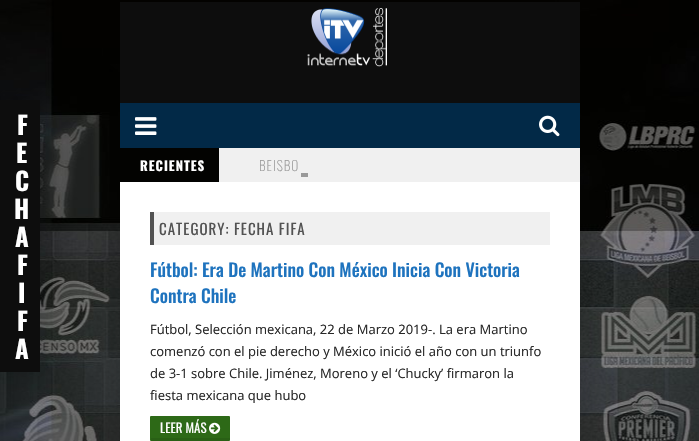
#include "include/core/SkBlurTypes.h"
#include "include/core/SkCanvas.h"
#include "include/core/SkData.h"
#include "include/core/SkFont.h"
#include "include/core/SkFontMgr.h"
#include "include/core/SkImage.h"
#include "include/core/SkMaskFilter.h"
#include "include/core/SkPaint.h"
#include "include/core/SkPathBuilder.h"
#include "include/core/SkTextBlob.h"
#include "include/effects/SkDashPathEffect.h"
#include "include/effects/SkGradientShader.h"
#include "include/utils/SkParsePath.h"

extern sk_sp<SkFontMgr> fontMgr;

static SkFont font(const char* family, int weight, float size, bool italic = false) {
    SkFontStyle style(weight, SkFontStyle::kNormal_Width,
        italic ? SkFontStyle::kItalic_Slant : SkFontStyle::kUpright_Slant);
    SkFont result(fontMgr->matchFamilyStyle(family, style), size);
    result.setSubpixel(true);
    return result;
}

static void drawLabel(SkCanvas* canvas, const char* s, float x, float y, const SkFont& font, SkColor color) {
    SkPaint ink(SkColor4f::FromColor(color));
    ink.setAntiAlias(true);
    canvas->drawString(s, x, y, font, ink);
}

static void drawTracked(SkCanvas* canvas, const char* s, float x, float y, const SkFont& font, const SkPaint& ink, float letter, float word) {
    std::vector<SkGlyphID> glyphs(font.countText(s, strlen(s), SkTextEncoding::kUTF8));
    std::vector<float> xs(glyphs.size());
    font.textToGlyphs(s, strlen(s), SkTextEncoding::kUTF8, glyphs);
    font.getXPos(glyphs, xs, x);
    float extra = 0;
    for (size_t i = 0; i < glyphs.size(); i++) {
        xs[i] += extra;
        extra += letter + word * (glyphs[i] == font.unicharToGlyph(' '));
    }
    canvas->drawTextBlob(SkTextBlob::MakeFromPosHGlyphs(glyphs, xs, y, font), 0, 0, ink);
}

static void fillRect(SkCanvas* canvas, float x, float y, float w, float h, SkColor color) {
    SkPaint ink(SkColor4f::FromColor(color));
    ink.setAntiAlias(true);
    canvas->drawRect(SkRect::MakeXYWH(x, y, w, h), ink);
}

static void fillRRect(SkCanvas* canvas, float x, float y, float w, float h, float radius, SkColor color) {
    SkPaint ink(SkColor4f::FromColor(color));
    ink.setAntiAlias(true);
    canvas->drawRoundRect(SkRect::MakeXYWH(x, y, w, h), radius, radius, ink);
}

static void drawPhoto(SkCanvas* canvas, const char* path, float x, float y, float w, float h) {
    auto image = SkImages::DeferredFromEncodedData(SkData::MakeFromFileName(path));
    canvas->drawImageRect(image, SkRect::MakeXYWH(x, y, w, h), SkSamplingOptions());
}

void draw(SkCanvas* canvas) {
    SkPaint paint;
    paint.setAntiAlias(true);
    canvas->clear(0xFFFFFFFF);
    drawPhoto(canvas, "assets/img1.png", 0, 0, 699, 441);
    paint.setColor(0x26000000);
    paint.setMaskFilter(SkMaskFilter::MakeBlur(kNormal_SkBlurStyle, 15));
    canvas->drawRect(SkRect::MakeXYWH(110, 2, 460, 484), paint);
    paint.setMaskFilter(nullptr);
    paint.setMaskFilter(SkMaskFilter::MakeBlur(kNormal_SkBlurStyle, 15));
    canvas->drawRect(SkRect::MakeXYWH(130, 2, 460, 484), paint);
    paint.setMaskFilter(nullptr);
    fillRect(canvas, 120, 182, 460, 259, 0xFFFFFFFF);
    fillRect(canvas, 120, 2, 460, 101, 0xFF0D0D0D);
    drawPhoto(canvas, "assets/img2.png", 307, 8, 80, 59);
    paint.setMaskFilter(SkMaskFilter::MakeBlur(kNormal_SkBlurStyle, 15));
    canvas->drawRect(SkRect::MakeXYWH(-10, 100, 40, 272), paint);
    paint.setMaskFilter(nullptr);
    paint.setMaskFilter(SkMaskFilter::MakeBlur(kNormal_SkBlurStyle, 15));
    canvas->drawRect(SkRect::MakeXYWH(10, 100, 40, 272), paint);
    paint.setMaskFilter(nullptr);
    fillRect(canvas, 0, 100, 40, 272, 0xFF0D0D0D);
    SkFont font1 = font("Oswald", 700, 25);
    drawLabel(canvas, "F", 17, 135, font1, 0xFFFFFFFF);
    drawLabel(canvas, "E", 16, 163, font1, 0xFFFFFFFF);
    drawLabel(canvas, "C", 15, 191, font1, 0xFFFFFFFF);
    drawLabel(canvas, "H", 14, 219, font1, 0xFFFFFFFF);
    drawLabel(canvas, "A", 15, 247, font1, 0xFFFFFFFF);
    drawLabel(canvas, "F", 17, 275, font1, 0xFFFFFFFF);
    drawLabel(canvas, "I", 18, 303, font1, 0xFFFFFFFF);
    drawLabel(canvas, "F", 17, 331, font1, 0xFFFFFFFF);
    drawLabel(canvas, "A", 15, 359, font1, 0xFFFFFFFF);
    fillRect(canvas, 120, 103, 460, 45, 0xFF022947);
    drawPhoto(canvas, "assets/img3.png", 135, 117, 22, 18);
    drawPhoto(canvas, "assets/img4.png", 539, 115, 21, 22);
    fillRect(canvas, 219, 148, 361, 34, 0xFFF0F0F0);
    SkFont font2 = font("Oswald", 700, 13);
    paint.setColor(0xFFFFFFFF);
    drawTracked(canvas, "RECIENTES", 140, 171, font2, paint, 1, 0);
    SkFont font3 = font("Oswald", 200, 13.5f);
    paint.setColor(0xFF999999);
    drawTracked(canvas, "BEISBO", 259, 171, font3, paint, 1, 0);
    fillRect(canvas, 301, 173, 7, 4, 0xFF999999);
    fillRect(canvas, 154, 212, 396, 33, 0xFFF0F0F0);
    fillRect(canvas, 150, 212, 4, 33, 0xFF525252);
    SkFont font4 = font("Oswald", 400, 15);
    paint.setColor(0xFF525252);
    drawTracked(canvas, "CATEGORY: FECHA FIFA", 159, 235, font4, paint, 1, 0);
    SkFont font5 = font("Oswald", 500, 18);
    drawLabel(canvas, "Fútbol: Era De Martino Con México Inicia Con Victoria", 150, 277, font5, 0xFF1E73BE);
    drawLabel(canvas, "Contra Chile", 150, 303, font5, 0xFF1E73BE);
    SkFont font6 = font("Open Sans", 400, 13);
    drawLabel(canvas, "Fútbol, Selección mexicana, 22 de Marzo 2019-. La era Martino", 150, 334, font6, 0xFF272727);
    drawLabel(canvas, "comenzó con el pie derecho y México inició el año con un triunfo", 150, 356, font6, 0xFF272727);
    drawLabel(canvas, "de 3-1 sobre Chile. Jiménez, Moreno y el ‘Chucky’ firmaron la", 150, 378, font6, 0xFF272727);
    drawLabel(canvas, "fiesta mexicana que hubo", 150, 400, font6, 0xFF272727);
    fillRRect(canvas, 150, 416, 80, 25, 1, 0xFF2D6917);
    fillRect(canvas, 151, 438, 79, 3, 0x17000000);
    SkFont font7 = font("Oswald", 400, 13);
    drawLabel(canvas, "LEER MÁS", 160, 433, font7, 0xFFFFFFFF);
    drawPhoto(canvas, "assets/img5.png", 209, 422, 12, 12);
}
